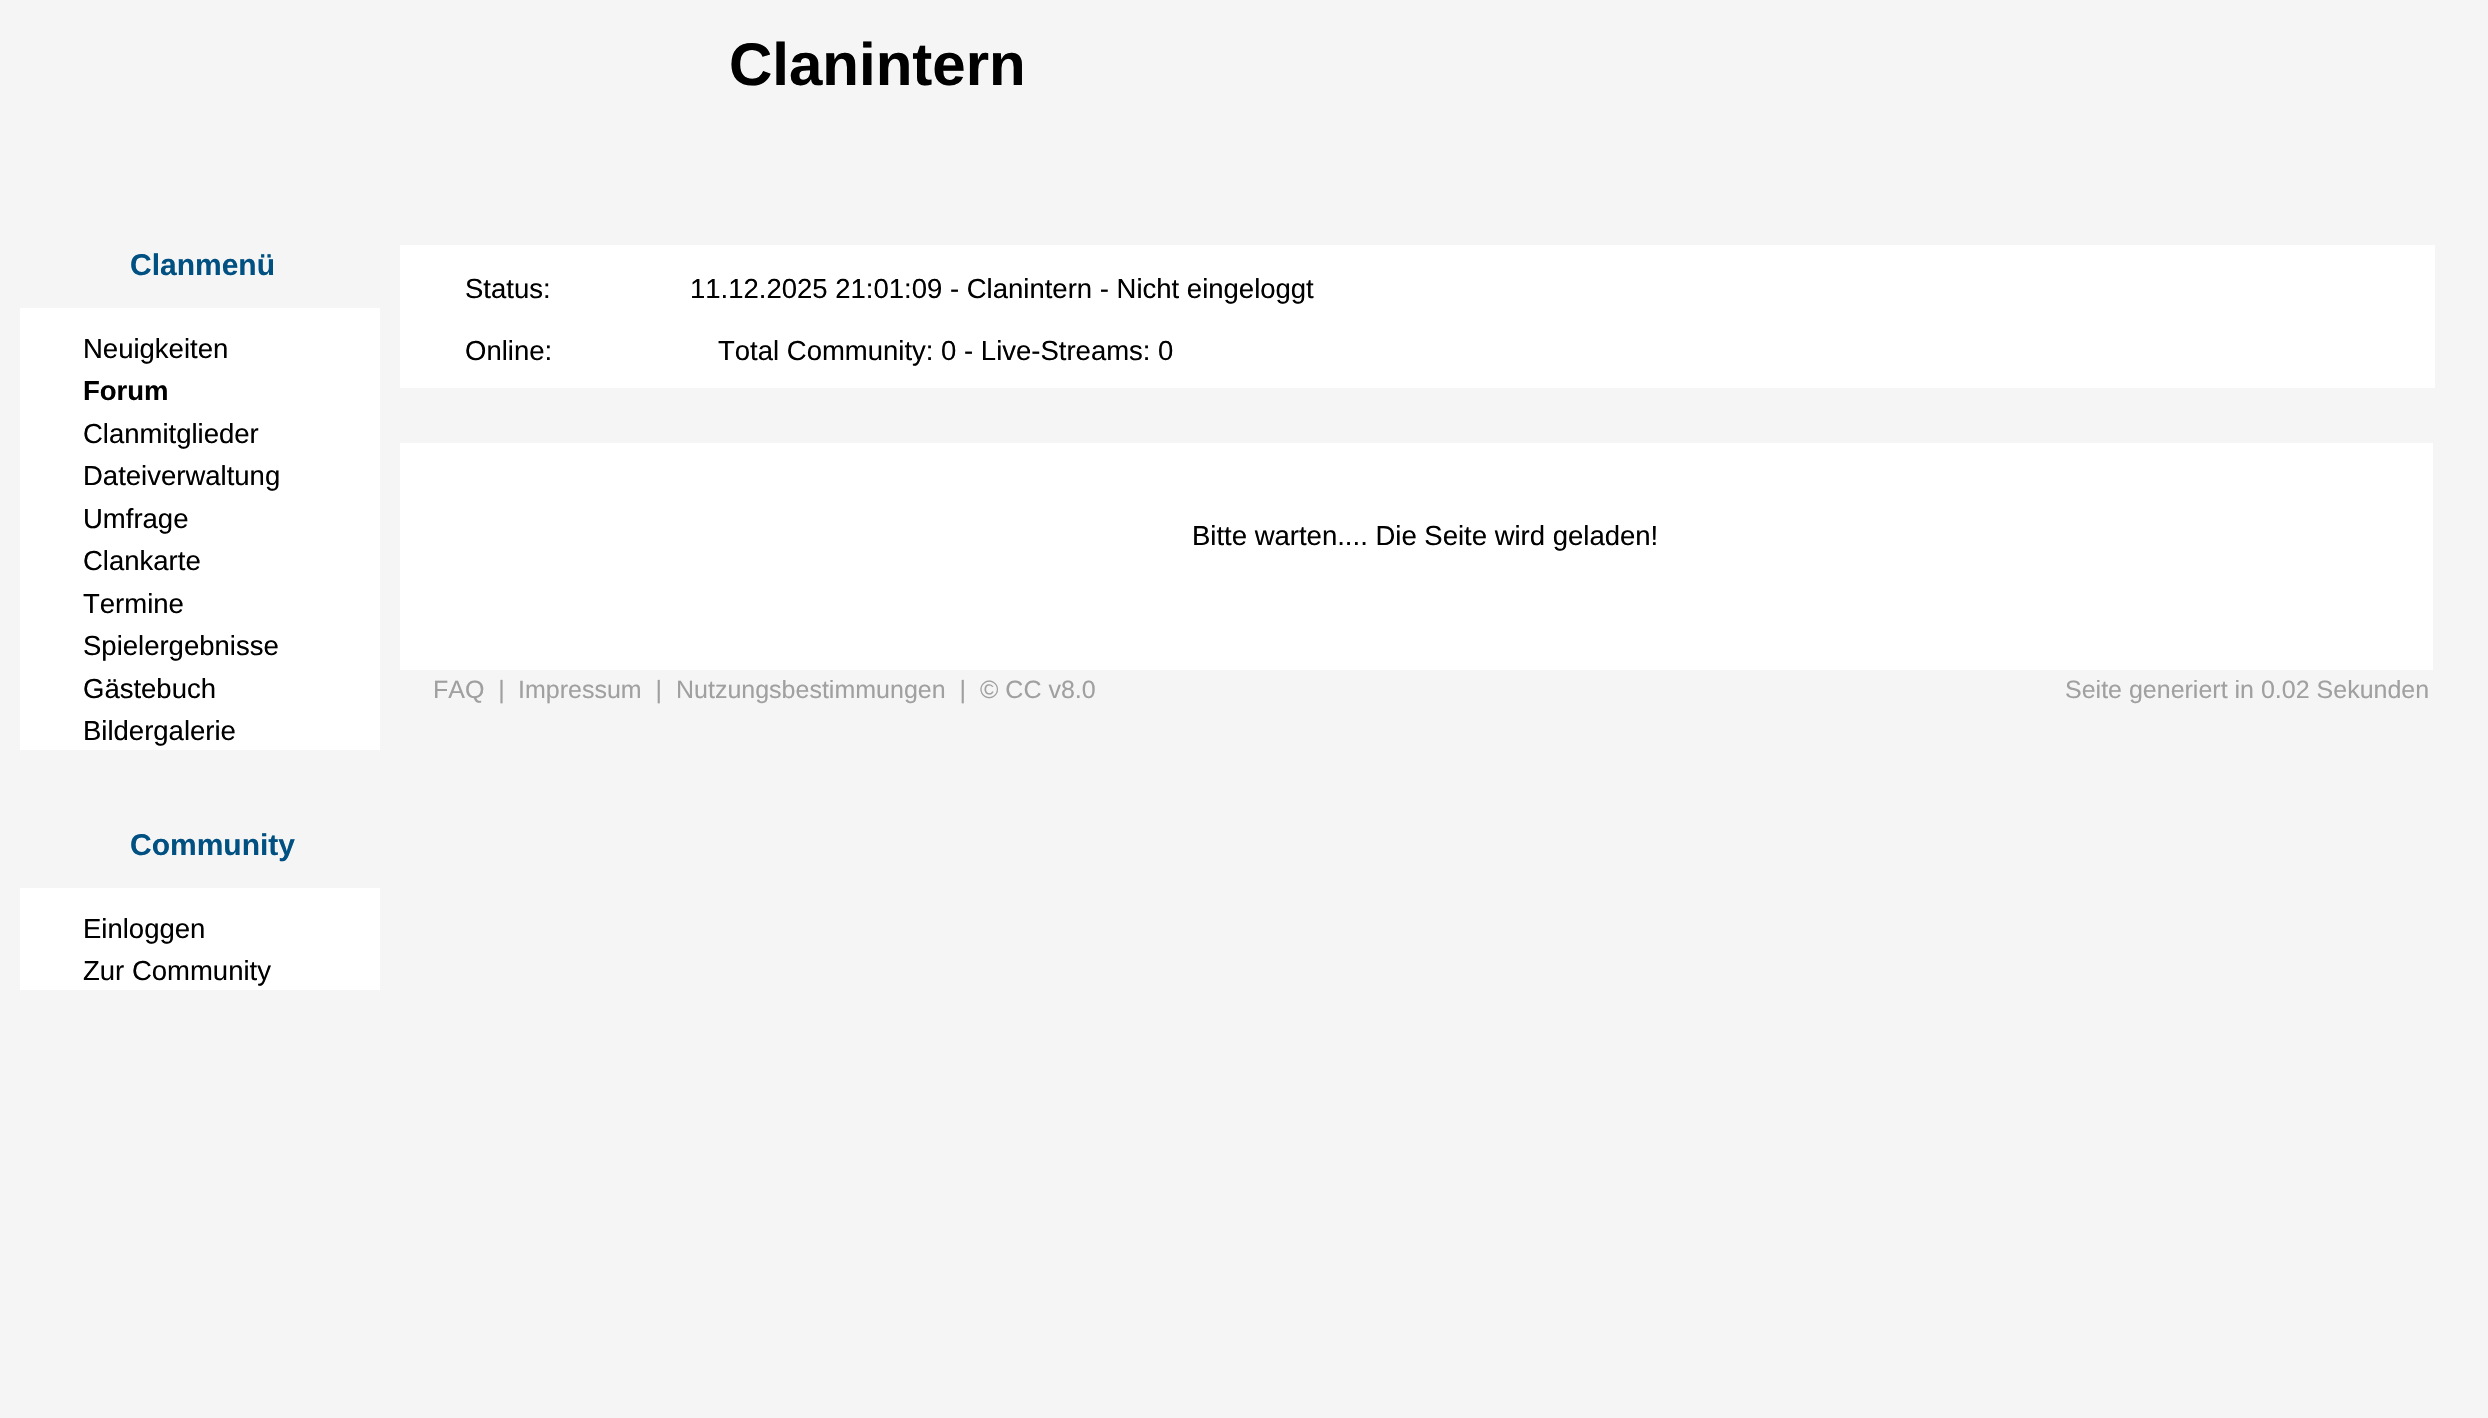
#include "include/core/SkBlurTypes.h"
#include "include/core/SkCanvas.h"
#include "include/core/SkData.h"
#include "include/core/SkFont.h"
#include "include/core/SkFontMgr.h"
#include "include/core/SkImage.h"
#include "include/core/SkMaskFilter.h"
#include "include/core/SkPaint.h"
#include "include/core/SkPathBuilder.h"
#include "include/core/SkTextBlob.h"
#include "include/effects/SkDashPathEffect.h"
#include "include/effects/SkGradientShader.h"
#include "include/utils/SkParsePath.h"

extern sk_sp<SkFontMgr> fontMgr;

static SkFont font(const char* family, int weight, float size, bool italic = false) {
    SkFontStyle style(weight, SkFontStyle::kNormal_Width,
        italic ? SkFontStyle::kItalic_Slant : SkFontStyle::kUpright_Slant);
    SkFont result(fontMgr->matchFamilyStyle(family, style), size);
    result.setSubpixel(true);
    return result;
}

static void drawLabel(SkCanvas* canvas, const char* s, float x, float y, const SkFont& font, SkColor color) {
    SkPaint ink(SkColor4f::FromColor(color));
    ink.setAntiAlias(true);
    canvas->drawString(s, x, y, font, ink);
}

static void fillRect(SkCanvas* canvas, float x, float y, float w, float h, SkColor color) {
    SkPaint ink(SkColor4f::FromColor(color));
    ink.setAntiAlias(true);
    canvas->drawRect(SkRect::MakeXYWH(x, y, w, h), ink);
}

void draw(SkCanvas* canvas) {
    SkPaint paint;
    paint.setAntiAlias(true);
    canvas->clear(0xFFF5F5F5);
    SkFont font1 = font("Liberation Sans", 700, 60);
    drawLabel(canvas, "Clanintern", 729, 85, font1, 0xFF000000);
    SkFont font2 = font("Liberation Sans", 700, 30);
    drawLabel(canvas, "Clanmenü", 130, 275, font2, 0xFF005082);
    fillRect(canvas, 20, 308, 360, 442, 0xFFFFFFFF);
    SkFont font3 = font("Liberation Sans", 400, 27.5f);
    drawLabel(canvas, "Neuigkeiten", 83, 358, font3, 0xFF000000);
    SkFont font4 = font("Liberation Sans", 700, 27.5f);
    drawLabel(canvas, "Forum", 83, 400, font4, 0xFF000000);
    drawLabel(canvas, "Clanmitglieder", 83, 443, font3, 0xFF000000);
    drawLabel(canvas, "Dateiverwaltung", 83, 485, font3, 0xFF000000);
    drawLabel(canvas, "Umfrage", 83, 528, font3, 0xFF000000);
    drawLabel(canvas, "Clankarte", 83, 570, font3, 0xFF000000);
    drawLabel(canvas, "Termine", 83, 613, font3, 0xFF000000);
    drawLabel(canvas, "Spielergebnisse", 83, 655, font3, 0xFF000000);
    drawLabel(canvas, "Gästebuch", 83, 698, font3, 0xFF000000);
    drawLabel(canvas, "Bildergalerie", 83, 740, font3, 0xFF000000);
    drawLabel(canvas, "Community", 130, 855, font2, 0xFF005082);
    fillRect(canvas, 20, 888, 360, 102, 0xFFFFFFFF);
    drawLabel(canvas, "Einloggen", 83, 938, font3, 0xFF000000);
    drawLabel(canvas, "Zur Community", 83, 980, font3, 0xFF000000);
    fillRect(canvas, 400, 245, 2035, 143, 0xFFFFFFFF);
    drawLabel(canvas, "Status:", 465, 298, font3, 0xFF000000);
    drawLabel(canvas, "11.12.2025 21:01:09 - Clanintern - Nicht eingeloggt", 690, 298, font3, 0xFF000000);
    drawLabel(canvas, "Online:", 465, 360, font3, 0xFF000000);
    drawLabel(canvas, "Total Community: 0 - Live-Streams: 0", 718, 360, font3, 0xFF000000);
    fillRect(canvas, 400, 443, 2033, 227, 0xFFFFFFFF);
    drawLabel(canvas, "Bitte warten.... Die Seite wird geladen!", 1192, 545, font3, 0xFF000000);
    SkFont font5 = font("Liberation Sans", 400, 25);
    drawLabel(canvas, "FAQ  |", 433, 698, font5, 0xFFA0A0A0);
    drawLabel(canvas, "Impressum  |", 518, 698, font5, 0xFFA0A0A0);
    drawLabel(canvas, "Nutzungsbestimmungen  |", 676, 698, font5, 0xFFA0A0A0);
    drawLabel(canvas, "© CC v8.0", 980, 698, font5, 0xFFA0A0A0);
    drawLabel(canvas, "Seite generiert in 0.02 Sekunden", 2065, 698, font5, 0xFFA0A0A0);
}
